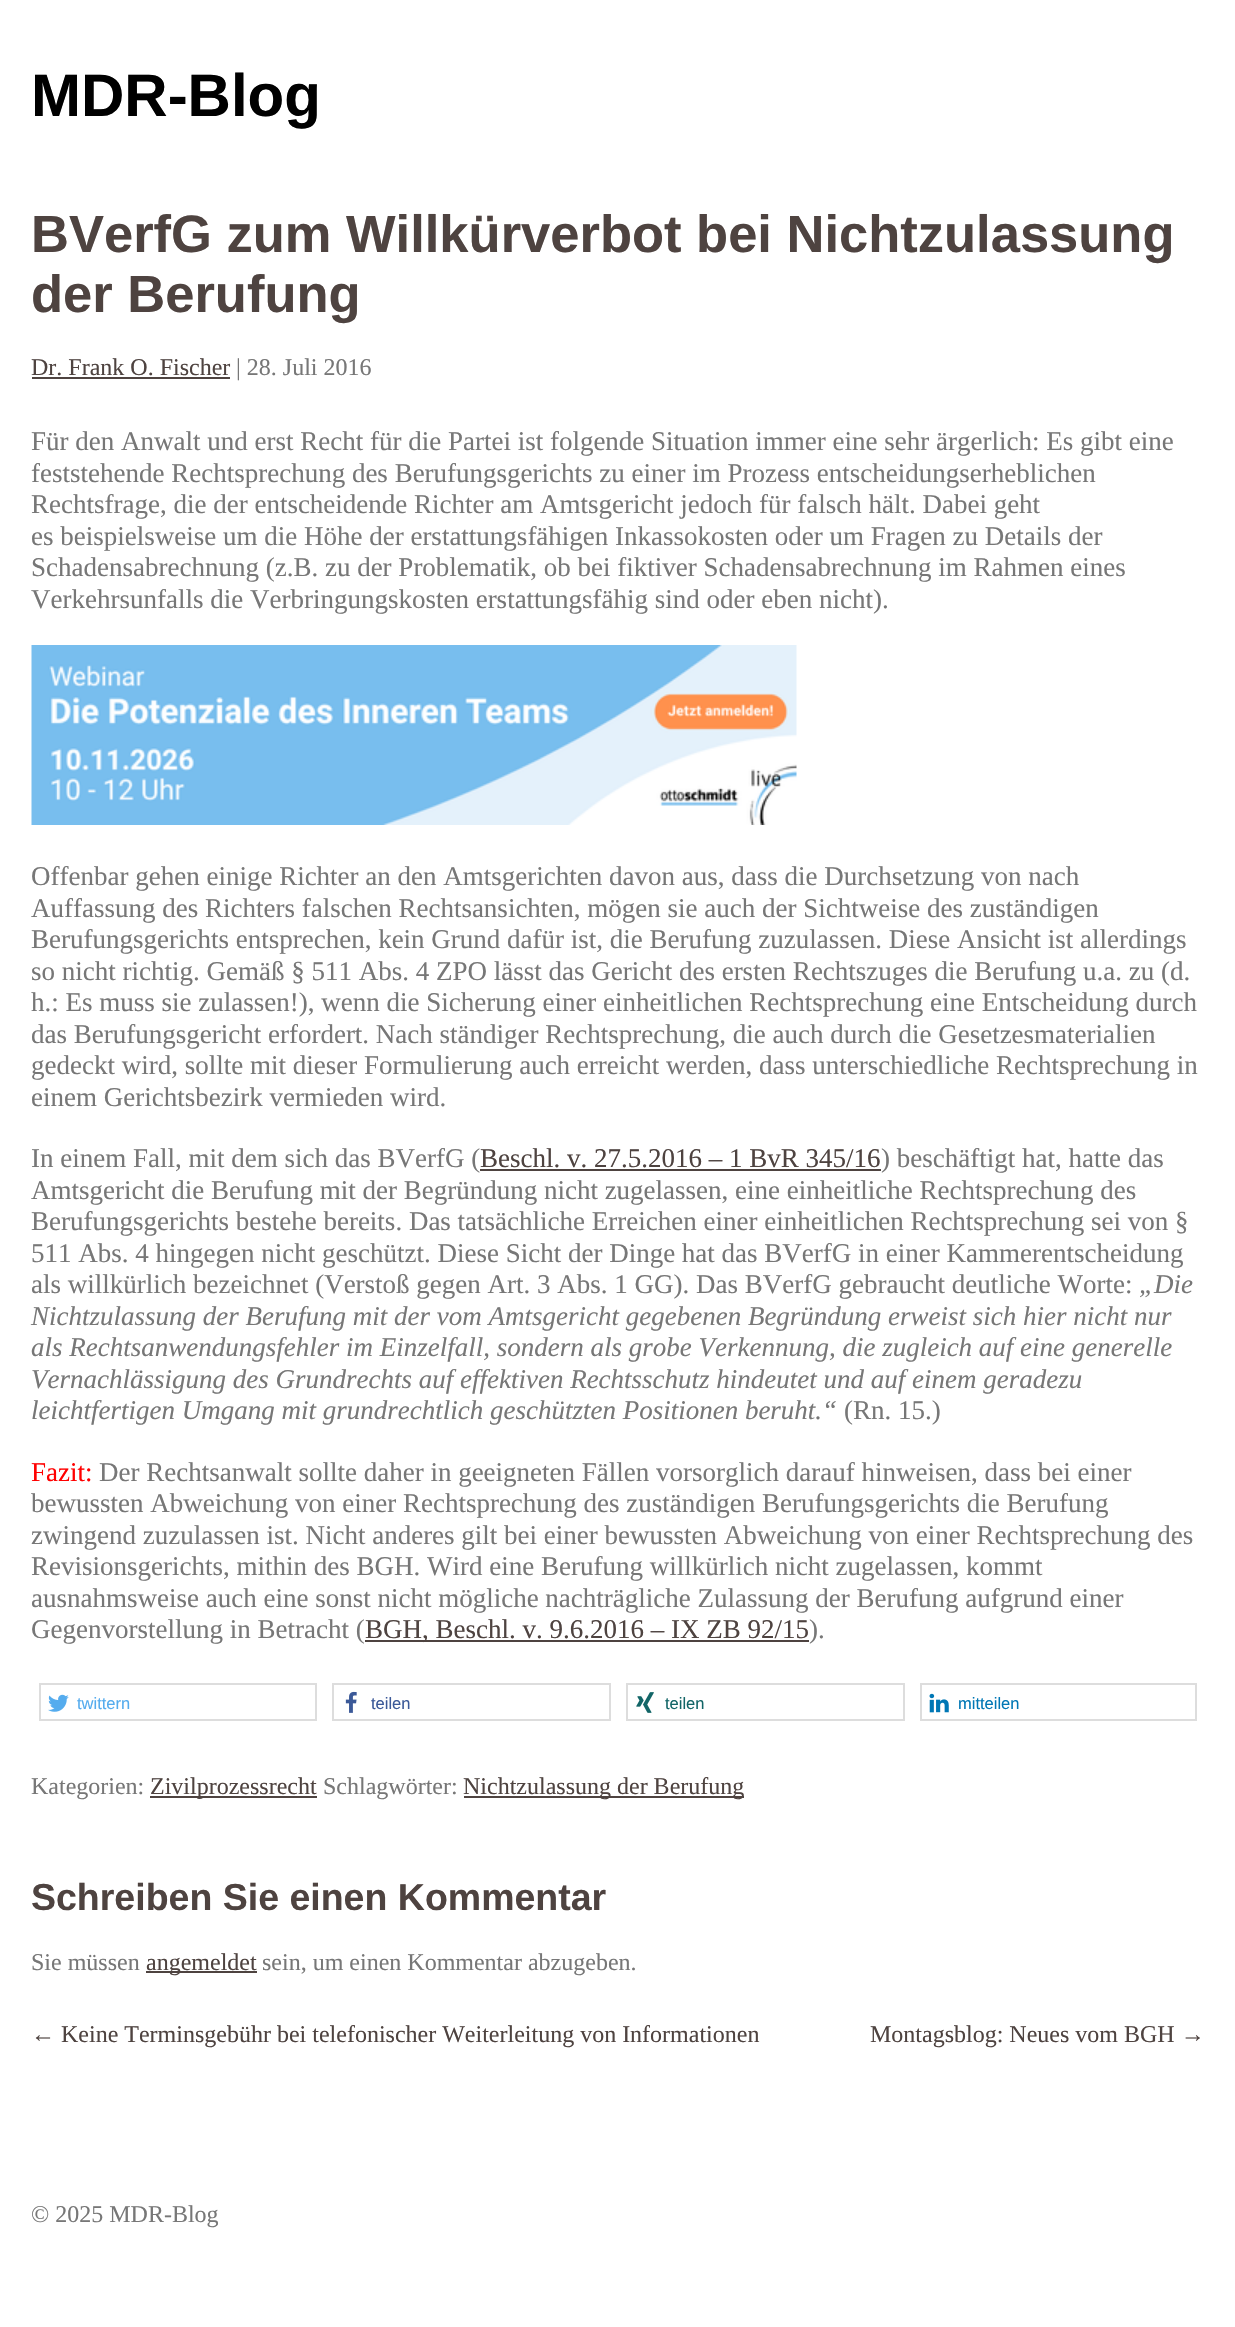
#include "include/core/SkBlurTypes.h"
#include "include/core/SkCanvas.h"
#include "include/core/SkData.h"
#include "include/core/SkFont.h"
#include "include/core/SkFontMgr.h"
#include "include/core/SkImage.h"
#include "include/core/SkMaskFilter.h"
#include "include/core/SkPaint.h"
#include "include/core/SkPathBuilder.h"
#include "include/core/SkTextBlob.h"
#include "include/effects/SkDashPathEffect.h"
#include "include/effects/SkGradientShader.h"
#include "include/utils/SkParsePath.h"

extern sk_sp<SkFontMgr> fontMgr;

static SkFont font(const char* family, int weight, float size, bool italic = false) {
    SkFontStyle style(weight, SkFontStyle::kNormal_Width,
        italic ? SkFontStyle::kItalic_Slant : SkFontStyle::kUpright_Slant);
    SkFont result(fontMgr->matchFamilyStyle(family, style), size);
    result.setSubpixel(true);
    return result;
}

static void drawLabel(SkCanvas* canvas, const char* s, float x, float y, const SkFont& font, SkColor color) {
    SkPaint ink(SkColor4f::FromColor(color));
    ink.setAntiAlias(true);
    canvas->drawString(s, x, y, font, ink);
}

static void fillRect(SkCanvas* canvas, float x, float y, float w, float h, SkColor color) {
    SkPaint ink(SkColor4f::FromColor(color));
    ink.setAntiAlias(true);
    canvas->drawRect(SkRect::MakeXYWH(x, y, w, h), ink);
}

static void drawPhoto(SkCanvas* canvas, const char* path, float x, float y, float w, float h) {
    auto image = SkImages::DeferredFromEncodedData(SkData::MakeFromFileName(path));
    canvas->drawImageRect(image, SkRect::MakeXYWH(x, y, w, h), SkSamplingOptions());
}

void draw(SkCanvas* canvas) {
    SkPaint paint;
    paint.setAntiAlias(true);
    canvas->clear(0xFFFFFFFF);
    SkFont font1 = font("Liberation Sans", 700, 60);
    drawLabel(canvas, "MDR-Blog", 31, 116, font1, 0xFF000000);
    SkFont font2 = font("Liberation Sans", 700, 52.5f);
    drawLabel(canvas, "BVerfG zum Willkürverbot bei Nichtzulassung", 31, 252, font2, 0xFF4E4340);
    drawLabel(canvas, "der Berufung", 31, 312, font2, 0xFF4E4340);
    SkFont font3 = font("Liberation Serif", 400, 24);
    drawLabel(canvas, "Dr. Frank O. Fischer", 31, 375, font3, 0xFF4E4340);
    fillRect(canvas, 32, 377, 198, 2, 0xFF4E4340);
    drawLabel(canvas, "| 28. Juli 2016", 236, 375, font3, 0xFF777777);
    SkFont font4 = font("Liberation Serif", 400, 27);
    drawLabel(canvas, "Für den Anwalt und erst Recht für die Partei ist folgende Situation immer eine sehr ärgerlich: Es gibt eine", 31, 450, font4, 0xFF777777);
    drawLabel(canvas, "feststehende Rechtsprechung des Berufungsgerichts zu einer im Prozess entscheidungserheblichen", 31, 482, font4, 0xFF777777);
    drawLabel(canvas, "Rechtsfrage, die der entscheidende Richter am Amtsgericht jedoch für falsch hält. Dabei geht", 31, 513, font4, 0xFF777777);
    drawLabel(canvas, "es beispielsweise um die Höhe der erstattungsfähigen Inkassokosten oder um Fragen zu Details der", 31, 545, font4, 0xFF777777);
    drawLabel(canvas, "Schadensabrechnung (z.B. zu der Problematik, ob bei fiktiver Schadensabrechnung im Rahmen eines", 31, 576, font4, 0xFF777777);
    drawLabel(canvas, "Verkehrsunfalls die Verbringungskosten erstattungsfähig sind oder eben nicht).", 31, 608, font4, 0xFF777777);
    drawPhoto(canvas, "assets/img1.png", 31, 645, 766, 180);
    drawLabel(canvas, "Offenbar gehen einige Richter an den Amtsgerichten davon aus, dass die Durchsetzung von nach", 31, 885, font4, 0xFF777777);
    drawLabel(canvas, "Auffassung des Richters falschen Rechtsansichten, mögen sie auch der Sichtweise des zuständigen", 31, 917, font4, 0xFF777777);
    drawLabel(canvas, "Berufungsgerichts entsprechen, kein Grund dafür ist, die Berufung zuzulassen. Diese Ansicht ist allerdings", 31, 948, font4, 0xFF777777);
    drawLabel(canvas, "so nicht richtig. Gemäß § 511 Abs. 4 ZPO lässt das Gericht des ersten Rechtszuges die Berufung u.a. zu (d.", 31, 980, font4, 0xFF777777);
    drawLabel(canvas, "h.: Es muss sie zulassen!), wenn die Sicherung einer einheitlichen Rechtsprechung eine Entscheidung durch", 31, 1011, font4, 0xFF777777);
    drawLabel(canvas, "das Berufungsgericht erfordert. Nach ständiger Rechtsprechung, die auch durch die Gesetzesmaterialien", 31, 1043, font4, 0xFF777777);
    drawLabel(canvas, "gedeckt wird, sollte mit dieser Formulierung auch erreicht werden, dass unterschiedliche Rechtsprechung in", 31, 1074, font4, 0xFF777777);
    drawLabel(canvas, "einem Gerichtsbezirk vermieden wird.", 31, 1106, font4, 0xFF777777);
    drawLabel(canvas, "In einem Fall, mit dem sich das BVerfG (", 31, 1167, font4, 0xFF777777);
    drawLabel(canvas, "Beschl. v. 27.5.2016 – 1 BvR 345/16", 480, 1167, font4, 0xFF4E4340);
    fillRect(canvas, 480, 1169, 401, 2, 0xFF4E4340);
    drawLabel(canvas, ") beschäftigt hat, hatte das", 881, 1167, font4, 0xFF777777);
    drawLabel(canvas, "Amtsgericht die Berufung mit der Begründung nicht zugelassen, eine einheitliche Rechtsprechung des", 31, 1199, font4, 0xFF777777);
    drawLabel(canvas, "Berufungsgerichts bestehe bereits. Das tatsächliche Erreichen einer einheitlichen Rechtsprechung sei von §", 31, 1230, font4, 0xFF777777);
    drawLabel(canvas, "511 Abs. 4 hingegen nicht geschützt. Diese Sicht der Dinge hat das BVerfG in einer Kammerentscheidung", 31, 1262, font4, 0xFF777777);
    drawLabel(canvas, "als willkürlich bezeichnet (Verstoß gegen Art. 3 Abs. 1 GG). Das BVerfG gebraucht deutliche Worte:", 31, 1293, font4, 0xFF777777);
    SkFont font5 = font("Liberation Serif", 400, 27, true);
    drawLabel(canvas, "„Die", 1139, 1293, font5, 0xFF777777);
    drawLabel(canvas, "Nichtzulassung der Berufung mit der vom Amtsgericht gegebenen Begründung erweist sich hier nicht nur", 31, 1325, font5, 0xFF777777);
    drawLabel(canvas, "als Rechtsanwendungsfehler im Einzelfall, sondern als grobe Verkennung, die zugleich auf eine generelle", 31, 1356, font5, 0xFF777777);
    drawLabel(canvas, "Vernachlässigung des Grundrechts auf effektiven Rechtsschutz hindeutet und auf einem geradezu", 31, 1388, font5, 0xFF777777);
    drawLabel(canvas, "leichtfertigen Umgang mit grundrechtlich geschützten Positionen beruht.“", 31, 1419, font5, 0xFF777777);
    drawLabel(canvas, "(Rn. 15.)", 844, 1419, font4, 0xFF777777);
    drawLabel(canvas, "Fazit:", 31, 1481, font4, 0xFFFF0000);
    drawLabel(canvas, "Der Rechtsanwalt sollte daher in geeigneten Fällen vorsorglich darauf hinweisen, dass bei einer", 99, 1481, font4, 0xFF777777);
    drawLabel(canvas, "bewussten Abweichung von einer Rechtsprechung des zuständigen Berufungsgerichts die Berufung", 31, 1512, font4, 0xFF777777);
    drawLabel(canvas, "zwingend zuzulassen ist. Nicht anderes gilt bei einer bewussten Abweichung von einer Rechtsprechung des", 31, 1544, font4, 0xFF777777);
    drawLabel(canvas, "Revisionsgerichts, mithin des BGH. Wird eine Berufung willkürlich nicht zugelassen, kommt", 31, 1575, font4, 0xFF777777);
    drawLabel(canvas, "ausnahmsweise auch eine sonst nicht mögliche nachträgliche Zulassung der Berufung aufgrund einer", 31, 1607, font4, 0xFF777777);
    drawLabel(canvas, "Gegenvorstellung in Betracht (", 31, 1638, font4, 0xFF777777);
    fillRect(canvas, 365, 1640, 444, 2, 0xFF4E4340);
    drawLabel(canvas, "BGH, Beschl. v. 9.6.2016 – IX ZB 92/15", 365, 1638, font4, 0xFF4E4340);
    drawLabel(canvas, ").", 809, 1638, font4, 0xFF777777);
    paint.setStroke(true);
    paint.setStrokeWidth(2);
    paint.setColor(0xFFDDDDDD);
    canvas->drawRect(SkRect::MakeXYWH(40, 1684, 276, 36), paint);
    drawPhoto(canvas, "assets/img2.png", 48, 1694, 21, 18);
    SkFont font6 = font("Liberation Sans", 400, 16.5f);
    drawLabel(canvas, "twittern", 77, 1709, font6, 0xFF55ACEE);
    canvas->drawRect(SkRect::MakeXYWH(333, 1684, 277, 36), paint);
    drawPhoto(canvas, "assets/img3.png", 345, 1691, 12, 22);
    drawLabel(canvas, "teilen", 371, 1709, font6, 0xFF3B5998);
    canvas->drawRect(SkRect::MakeXYWH(627, 1684, 277, 36), paint);
    drawPhoto(canvas, "assets/img4.png", 636, 1692, 18, 21);
    drawLabel(canvas, "teilen", 665, 1709, font6, 0xFF126567);
    canvas->drawRect(SkRect::MakeXYWH(921, 1684, 275, 36), paint);
    drawPhoto(canvas, "assets/img5.png", 929, 1693, 20, 20);
    drawLabel(canvas, "mitteilen", 958, 1709, font6, 0xFF0077B5);
    drawLabel(canvas, "Kategorien:", 31, 1794, font3, 0xFF777777);
    fillRect(canvas, 150, 1796, 167, 2, 0xFF4E4340);
    drawLabel(canvas, "Zivilprozessrecht", 150, 1794, font3, 0xFF4E4340);
    drawLabel(canvas, "Schlagwörter:", 323, 1794, font3, 0xFF777777);
    fillRect(canvas, 464, 1796, 280, 2, 0xFF4E4340);
    drawLabel(canvas, "Nichtzulassung der Berufung", 463, 1794, font3, 0xFF4E4340);
    SkFont font7 = font("Liberation Sans", 700, 37.5f);
    drawLabel(canvas, "Schreiben Sie einen Kommentar", 31, 1910, font7, 0xFF4E4340);
    drawLabel(canvas, "Sie müssen", 31, 1970, font3, 0xFF777777);
    fillRect(canvas, 146, 1971, 111, 2, 0xFF4E4340);
    drawLabel(canvas, "angemeldet", 146, 1970, font3, 0xFF4E4340);
    drawLabel(canvas, "sein, um einen Kommentar abzugeben.", 262, 1970, font3, 0xFF777777);
    drawLabel(canvas, "← Keine Terminsgebühr bei telefonischer Weiterleitung von Informationen", 31, 2042, font3, 0xFF4E4340);
    drawLabel(canvas, "Montagsblog: Neues vom BGH →", 870, 2042, font3, 0xFF4E4340);
    drawLabel(canvas, "© 2025 MDR-Blog", 31, 2222, font3, 0xFF777777);
}
